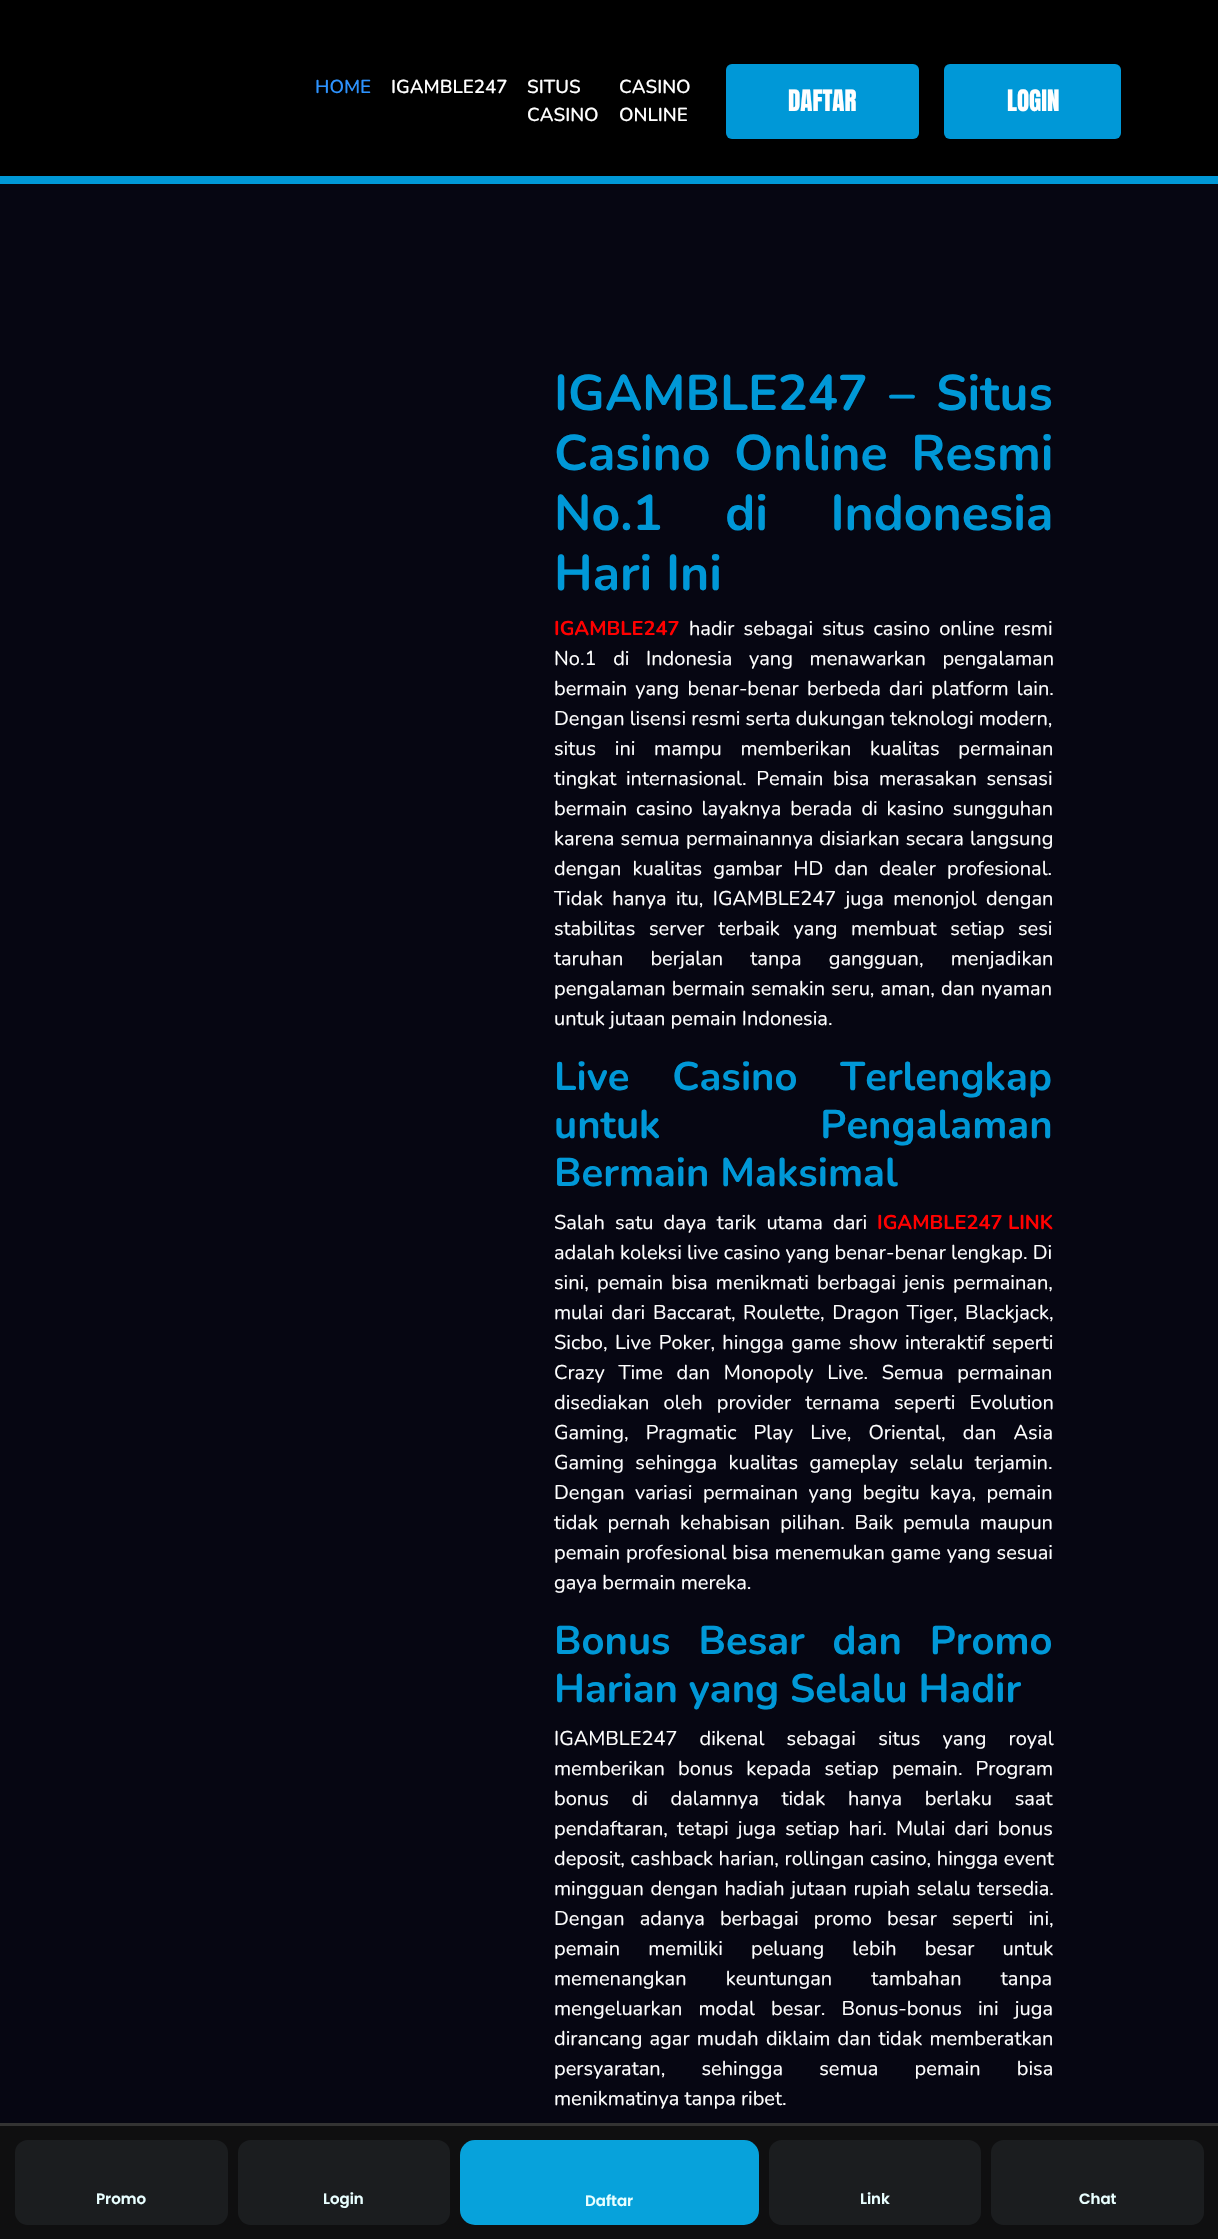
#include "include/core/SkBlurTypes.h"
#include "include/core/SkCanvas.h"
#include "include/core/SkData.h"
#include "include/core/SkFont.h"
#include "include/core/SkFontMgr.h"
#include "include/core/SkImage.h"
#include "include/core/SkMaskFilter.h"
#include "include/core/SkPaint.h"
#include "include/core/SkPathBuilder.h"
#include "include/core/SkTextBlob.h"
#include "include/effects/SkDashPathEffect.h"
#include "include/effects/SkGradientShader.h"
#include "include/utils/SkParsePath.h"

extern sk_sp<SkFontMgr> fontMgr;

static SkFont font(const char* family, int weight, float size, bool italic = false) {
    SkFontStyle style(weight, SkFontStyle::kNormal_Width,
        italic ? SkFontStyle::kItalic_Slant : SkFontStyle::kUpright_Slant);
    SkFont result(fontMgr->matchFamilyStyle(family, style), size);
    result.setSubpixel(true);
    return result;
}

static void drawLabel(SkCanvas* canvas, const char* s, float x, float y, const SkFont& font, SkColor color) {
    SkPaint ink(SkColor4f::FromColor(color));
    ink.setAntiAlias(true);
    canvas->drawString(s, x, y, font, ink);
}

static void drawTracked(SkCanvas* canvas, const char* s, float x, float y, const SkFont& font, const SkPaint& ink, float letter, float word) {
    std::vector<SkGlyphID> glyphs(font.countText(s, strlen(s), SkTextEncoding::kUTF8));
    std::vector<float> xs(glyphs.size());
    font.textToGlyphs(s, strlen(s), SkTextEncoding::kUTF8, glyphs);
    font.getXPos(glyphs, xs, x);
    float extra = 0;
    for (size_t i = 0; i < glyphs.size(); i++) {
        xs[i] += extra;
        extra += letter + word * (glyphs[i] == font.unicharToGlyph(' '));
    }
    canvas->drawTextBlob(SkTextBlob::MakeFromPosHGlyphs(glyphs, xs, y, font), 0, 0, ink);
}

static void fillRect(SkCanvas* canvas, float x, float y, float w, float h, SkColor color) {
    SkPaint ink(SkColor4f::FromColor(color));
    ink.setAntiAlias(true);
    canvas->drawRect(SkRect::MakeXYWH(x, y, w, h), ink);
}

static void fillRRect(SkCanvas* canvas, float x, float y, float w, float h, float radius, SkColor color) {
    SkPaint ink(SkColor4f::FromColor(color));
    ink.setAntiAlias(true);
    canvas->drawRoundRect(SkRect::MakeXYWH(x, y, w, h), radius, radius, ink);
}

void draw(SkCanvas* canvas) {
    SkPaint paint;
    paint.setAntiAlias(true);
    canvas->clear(0xFF060612);
    fillRect(canvas, 0, 0, 1218, 176, 0xFF000000);
    fillRect(canvas, 0, 176, 1218, 8, 0xFF0098D7);
    SkFont font1 = font("Nunito", 600, 18.75f);
    drawLabel(canvas, "HOME", 315, 93, font1, 0xFF2D93FF);
    drawLabel(canvas, "IGAMBLE247", 391, 93, font1, 0xFFFFFFFF);
    drawLabel(canvas, "SITUS", 527, 93, font1, 0xFFFFFFFF);
    drawLabel(canvas, "CASINO", 527, 121, font1, 0xFFFFFFFF);
    drawLabel(canvas, "CASINO", 619, 93, font1, 0xFFFFFFFF);
    drawLabel(canvas, "ONLINE", 619, 121, font1, 0xFFFFFFFF);
    fillRRect(canvas, 726, 64, 193, 75, 6, 0xFF0098D7);
    SkFont font2 = font("Anton", 400, 25);
    drawLabel(canvas, "DAFTAR", 788, 111, font2, 0xFFFFFFFF);
    fillRRect(canvas, 944, 64, 177, 75, 6, 0xFF0098D7);
    drawLabel(canvas, "LOGIN", 1007, 111, font2, 0xFFFFFFFF);
    SkFont font3 = font("Nunito", 700, 50);
    paint.setColor(0xFF0098D7);
    drawTracked(canvas, "IGAMBLE247 – Situs", 554, 410, font3, paint, 0, 8);
    drawTracked(canvas, "Casino Online Resmi", 554, 470, font3, paint, 0, 10);
    drawTracked(canvas, "No.1 di Indonesia", 554, 530, font3, paint, 0, 49);
    drawLabel(canvas, "Hari Ini", 554, 590, font3, 0xFF0098D7);
    SkFont font4 = font("Nunito", 700, 20);
    drawLabel(canvas, "IGAMBLE247", 554, 635, font4, 0xFFFF0000);
    SkFont font5 = font("Nunito", 400, 20);
    paint.setColor(0xFFFFFFFF);
    drawTracked(canvas, "hadir sebagai situs casino online resmi", 689, 635, font5, paint, 0, 4);
    drawTracked(canvas, "No.1 di Indonesia yang menawarkan pengalaman", 554, 665, font5, paint, 0, 11.5f);
    drawTracked(canvas, "bermain yang benar-benar berbeda dari platform lain.", 554, 695, font5, paint, 0, 3);
    drawLabel(canvas, "Dengan lisensi resmi serta dukungan teknologi modern,", 554, 725, font5, 0xFFFFFFFF);
    drawTracked(canvas, "situs ini mampu memberikan kualitas permainan", 554, 755, font5, paint, 0, 13.5f);
    drawTracked(canvas, "tingkat internasional. Pemain bisa merasakan sensasi", 554, 785, font5, paint, 0, 4.5f);
    drawTracked(canvas, "bermain casino layaknya berada di kasino sungguhan", 554, 815, font5, paint, 0, 3.75f);
    drawTracked(canvas, "karena semua permainannya disiarkan secara langsung", 554, 845, font5, paint, 0, 1);
    drawTracked(canvas, "dengan kualitas gambar HD dan dealer profesional.", 554, 875, font5, paint, 0, 6);
    drawTracked(canvas, "Tidak hanya itu, IGAMBLE247 juga menonjol dengan", 554, 905, font5, paint, 0, 4.25f);
    drawTracked(canvas, "stabilitas server terbaik yang membuat setiap sesi", 554, 935, font5, paint, 0, 8.5f);
    drawTracked(canvas, "taruhan berjalan tanpa gangguan, menjadikan", 554, 965, font5, paint, 0, 22);
    drawTracked(canvas, "pengalaman bermain semakin seru, aman, dan nyaman", 554, 995, font5, paint, 0, 1);
    drawLabel(canvas, "untuk jutaan pemain Indonesia.", 554, 1025, font5, 0xFFFFFFFF);
    SkFont font6 = font("Nunito", 700, 40);
    paint.setColor(0xFF0098D7);
    drawTracked(canvas, "Live Casino Terlengkap", 554, 1090, font6, paint, 0, 32);
    drawTracked(canvas, "untuk Pengalaman", 554, 1138, font6, paint, 0, 149);
    drawLabel(canvas, "Bermain Maksimal", 554, 1186, font6, 0xFF0098D7);
    paint.setColor(0xFFFFFFFF);
    drawTracked(canvas, "Salah satu daya tarik utama dari", 554, 1229, font5, paint, 0, 5);
    drawLabel(canvas, "IGAMBLE247 LINK", 877, 1229, font4, 0xFFFF0000);
    drawLabel(canvas, "adalah koleksi live casino yang benar-benar lengkap. Di", 554, 1259, font5, 0xFFFFFFFF);
    drawTracked(canvas, "sini, pemain bisa menikmati berbagai jenis permainan,", 554, 1289, font5, paint, 0, 3);
    drawTracked(canvas, "mulai dari Baccarat, Roulette, Dragon Tiger, Blackjack,", 554, 1319, font5, paint, 0, 2.5f);
    drawTracked(canvas, "Sicbo, Live Poker, hingga game show interaktif seperti", 554, 1349, font5, paint, 0, 2.25f);
    drawTracked(canvas, "Crazy Time dan Monopoly Live. Semua permainan", 554, 1379, font5, paint, 0, 8.5f);
    drawTracked(canvas, "disediakan oleh provider ternama seperti Evolution", 554, 1409, font5, paint, 0, 9);
    drawTracked(canvas, "Gaming, Pragmatic Play Live, Oriental, dan Asia", 554, 1439, font5, paint, 0, 12);
    drawTracked(canvas, "Gaming sehingga kualitas gameplay selalu terjamin.", 554, 1469, font5, paint, 0, 6.25f);
    drawTracked(canvas, "Dengan variasi permainan yang begitu kaya, pemain", 554, 1499, font5, paint, 0, 5.25f);
    drawTracked(canvas, "tidak pernah kehabisan pilihan. Baik pemula maupun", 554, 1529, font5, paint, 0, 4.5f);
    drawTracked(canvas, "pemain profesional bisa menemukan game yang sesuai", 554, 1559, font5, paint, 0, 0.75f);
    drawLabel(canvas, "gaya bermain mereka.", 554, 1589, font5, 0xFFFFFFFF);
    paint.setColor(0xFF0098D7);
    drawTracked(canvas, "Bonus Besar dan Promo", 554, 1654, font6, paint, 0, 17);
    drawLabel(canvas, "Harian yang Selalu Hadir", 554, 1702, font6, 0xFF0098D7);
    paint.setColor(0xFFFFFFFF);
    drawTracked(canvas, "IGAMBLE247 dikenal sebagai situs yang royal", 554, 1745, font5, paint, 0, 17);
    drawTracked(canvas, "memberikan bonus kepada setiap pemain. Program", 554, 1775, font5, paint, 0, 8);
    drawTracked(canvas, "bonus di dalamnya tidak hanya berlaku saat", 554, 1805, font5, paint, 0, 17.5f);
    drawTracked(canvas, "pendaftaran, tetapi juga setiap hari. Mulai dari bonus", 554, 1835, font5, paint, 0, 4);
    drawTracked(canvas, "deposit, cashback harian, rollingan casino, hingga event", 554, 1865, font5, paint, 0, 0.5f);
    drawTracked(canvas, "mingguan dengan hadiah jutaan rupiah selalu tersedia.", 554, 1895, font5, paint, 0, 1.5f);
    drawTracked(canvas, "Dengan adanya berbagai promo besar seperti ini,", 554, 1925, font5, paint, 0, 10);
    drawTracked(canvas, "pemain memiliki peluang lebih besar untuk", 554, 1955, font5, paint, 0, 23);
    drawTracked(canvas, "memenangkan keuntungan tambahan tanpa", 554, 1985, font5, paint, 0, 34);
    drawTracked(canvas, "mengeluarkan modal besar. Bonus-bonus ini juga", 554, 2015, font5, paint, 0, 11);
    drawTracked(canvas, "dirancang agar mudah diklaim dan tidak memberatkan", 554, 2045, font5, paint, 0, 2);
    drawTracked(canvas, "persyaratan, sehingga semua pemain bisa", 554, 2075, font5, paint, 0, 31);
    drawLabel(canvas, "menikmatinya tanpa ribet.", 554, 2105, font5, 0xFFFFFFFF);
    fillRect(canvas, 0, 2126, 1218, 113, 0xFF0F0F10);
    fillRect(canvas, 0, 2123, 1218, 3, 0xFF333333);
    fillRRect(canvas, 15, 2140, 213, 85, 13, 0xFF1B1D1F);
    SkFont font7 = font("Poppins", 600, 15);
    drawLabel(canvas, "Promo", 96, 2204, font7, 0xFFE9FFFF);
    fillRRect(canvas, 238, 2140, 212, 85, 13, 0xFF1B1D1F);
    drawLabel(canvas, "Login", 323, 2204, font7, 0xFFE9FFFF);
    fillRRect(canvas, 460, 2140, 299, 85, 15, 0xFF07A2DB);
    drawLabel(canvas, "Daftar", 585, 2206, font7, 0xFFE9FFFF);
    fillRRect(canvas, 769, 2140, 212, 85, 13, 0xFF1B1D1F);
    drawLabel(canvas, "Link", 860, 2204, font7, 0xFFE9FFFF);
    fillRRect(canvas, 991, 2140, 213, 85, 13, 0xFF1B1D1F);
    drawLabel(canvas, "Chat", 1079, 2204, font7, 0xFFE9FFFF);
}
